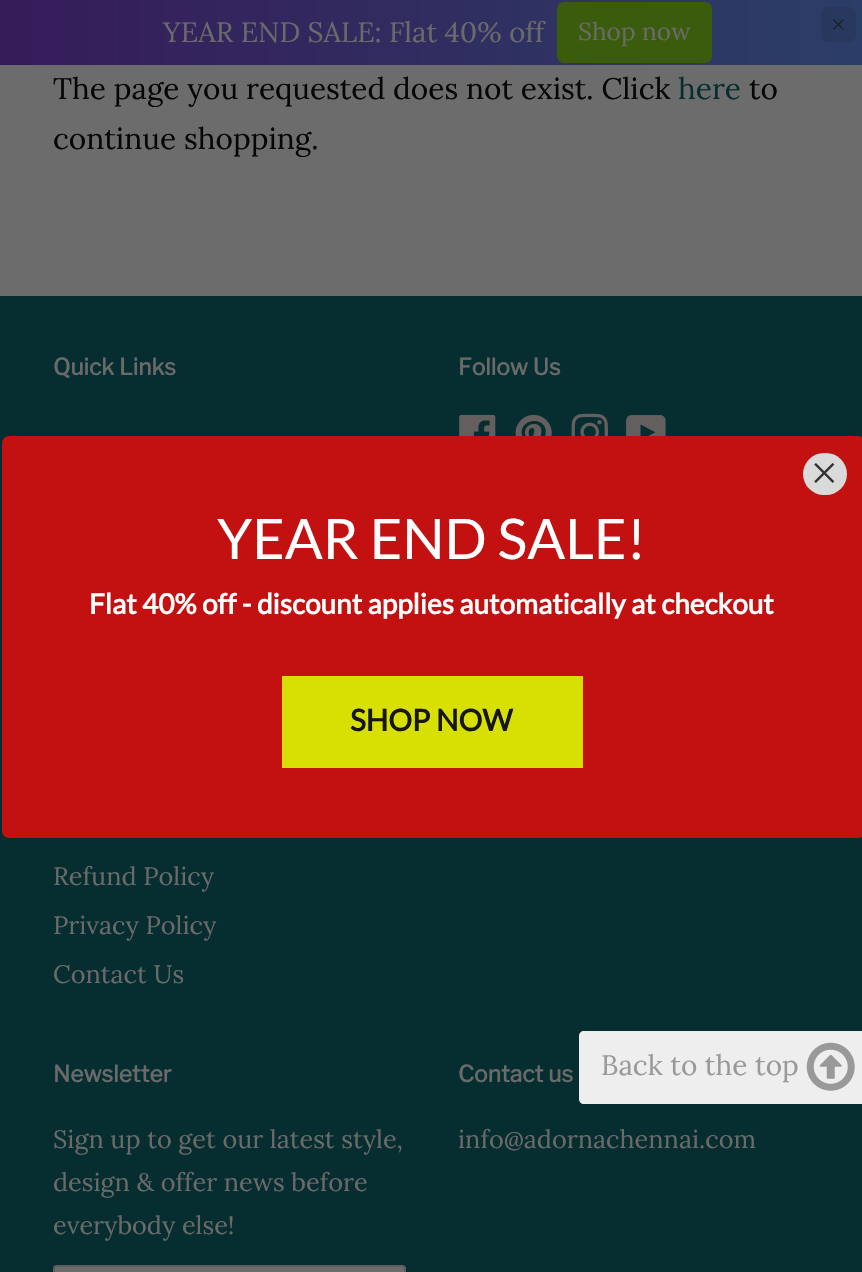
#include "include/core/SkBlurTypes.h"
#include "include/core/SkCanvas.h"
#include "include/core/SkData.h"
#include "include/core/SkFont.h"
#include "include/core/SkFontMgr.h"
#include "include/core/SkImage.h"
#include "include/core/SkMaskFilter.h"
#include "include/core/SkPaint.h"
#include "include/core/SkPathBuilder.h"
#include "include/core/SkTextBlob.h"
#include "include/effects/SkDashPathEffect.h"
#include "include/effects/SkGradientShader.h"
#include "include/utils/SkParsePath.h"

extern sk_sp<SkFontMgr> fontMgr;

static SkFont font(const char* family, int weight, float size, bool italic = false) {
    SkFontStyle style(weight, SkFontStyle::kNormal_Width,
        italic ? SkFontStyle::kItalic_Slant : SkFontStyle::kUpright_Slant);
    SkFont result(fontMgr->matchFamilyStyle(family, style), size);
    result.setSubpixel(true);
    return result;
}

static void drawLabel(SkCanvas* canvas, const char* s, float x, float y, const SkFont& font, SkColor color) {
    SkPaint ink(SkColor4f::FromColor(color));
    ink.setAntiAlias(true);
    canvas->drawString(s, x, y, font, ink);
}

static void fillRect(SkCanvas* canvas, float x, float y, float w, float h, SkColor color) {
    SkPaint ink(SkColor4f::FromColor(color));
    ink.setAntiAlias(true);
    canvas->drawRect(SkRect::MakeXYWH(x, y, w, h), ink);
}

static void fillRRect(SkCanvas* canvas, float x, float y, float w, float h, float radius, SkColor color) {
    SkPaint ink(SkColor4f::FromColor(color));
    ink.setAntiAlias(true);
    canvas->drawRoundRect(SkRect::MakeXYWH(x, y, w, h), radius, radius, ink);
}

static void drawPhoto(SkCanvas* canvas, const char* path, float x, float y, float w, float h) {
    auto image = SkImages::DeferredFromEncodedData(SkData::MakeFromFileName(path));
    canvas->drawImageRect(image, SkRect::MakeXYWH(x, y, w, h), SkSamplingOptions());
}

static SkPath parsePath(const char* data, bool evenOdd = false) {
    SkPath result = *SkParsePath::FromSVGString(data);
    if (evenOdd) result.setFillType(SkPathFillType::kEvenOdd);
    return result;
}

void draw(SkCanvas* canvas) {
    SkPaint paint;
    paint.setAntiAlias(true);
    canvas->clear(0xFF6C6C6C);
    {
        const SkColor colors[] = {0xFF361C5A, 0xFF2B3E67};
        const float stops[] = {0, 1};
        const SkPoint ends[] = {{0, 32}, {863, 32}};
        paint.setShader(SkGradientShader::MakeLinear(ends, colors, stops, 2, SkTileMode::kClamp));
        paint.setAlpha(255);
    }
    canvas->drawRect(SkRect::MakeXYWH(0, 0, 862, 65), paint);
    SkFont font1 = font("Lora", 400, 28);
    drawLabel(canvas, "YEAR END SALE: Flat 40% off", 163, 42, font1, 0xFF6A6A6A);
    fillRRect(canvas, 557, 2, 155, 61, 7, 0xFF3B5C0C);
    SkFont font2 = font("Lora", 400, 24.5f);
    drawLabel(canvas, "Shop now", 578, 40, font2, 0xFF6A6A6A);
    fillRRect(canvas, 821, 7, 35, 35, 7, 0x1A060606);
    drawPhoto(canvas, "assets/img1.png", 833, 19, 11, 11);
    fillRect(canvas, 0, 296, 862, 976, 0xFF062D30);
    fillRRect(canvas, 2, 436, 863, 402, 7, 0xFFC31010);
    fillRRect(canvas, 803, 453, 44, 42, 21, 0xFFDADADA);
    drawPhoto(canvas, "assets/img2.png", 814, 463, 21, 20);
    SkFont font3 = font("Lato", 400, 56);
    drawLabel(canvas, "YEAR END SALE!", 217, 559, font3, 0xFFFFFFFF);
    SkFont font4 = font("Lato", 700, 28);
    drawLabel(canvas, "Flat 40% off - discount applies automatically at checkout", 89, 614, font4, 0xFFFFFFFF);
    fillRect(canvas, 282, 676, 301, 92, 0xFFD8DF02);
    SkFont font5 = font("Lato", 700, 29.75f);
    drawLabel(canvas, "SHOP NOW", 350, 731, font5, 0xFF161616);
    SkFont font6 = font("Lora", 400, 29.75f);
    drawLabel(canvas, "The page you requested does not exist. Click", 53, 99, font6, 0xFF060606);
    drawLabel(canvas, "here", 678, 99, font6, 0xFF062D30);
    drawLabel(canvas, "to", 749, 99, font6, 0xFF060606);
    drawLabel(canvas, "continue shopping.", 53, 149, font6, 0xFF060606);
    SkFont font7 = font("Libre Franklin", 700, 22.75f);
    drawLabel(canvas, "Quick Links", 53, 375, font7, 0xFF6A6A6A);
    SkFont font8 = font("Lora", 400, 25.25f);
    drawLabel(canvas, "Refund Policy", 53, 885, font8, 0xFF6A6A6A);
    drawLabel(canvas, "Privacy Policy", 53, 934, font8, 0xFF6A6A6A);
    drawLabel(canvas, "Contact Us", 53, 983, font8, 0xFF6A6A6A);
    drawLabel(canvas, "Follow Us", 458, 375, font7, 0xFF6A6A6A);
    drawPhoto(canvas, "assets/img3.png", 459, 414, 37, 22);
    drawPhoto(canvas, "assets/img4.png", 515, 414, 37, 22);
    drawPhoto(canvas, "assets/img5.png", 571, 413, 37, 23);
    drawPhoto(canvas, "assets/img6.png", 626, 415, 40, 21);
    drawLabel(canvas, "Newsletter", 53, 1082, font7, 0xFF6A6A6A);
    drawLabel(canvas, "Sign up to get our latest style,", 53, 1148, font8, 0xFF6A6A6A);
    drawLabel(canvas, "design & offer news before", 53, 1191, font8, 0xFF6A6A6A);
    drawLabel(canvas, "everybody else!", 53, 1234, font8, 0xFF6A6A6A);
    fillRRect(canvas, 53, 1265, 353, 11, 4, 0xFF6C6C6C);
    paint.setStroke(true);
    paint.setStrokeWidth(2);
    paint.setShader(nullptr);
    paint.setColor(0x26060606);
    canvas->drawRoundRect(SkRect::MakeXYWH(54, 1266, 351, 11), 3, 3, paint);
    drawLabel(canvas, "Contact us", 458, 1082, font7, 0xFF6A6A6A);
    drawLabel(canvas, "info@adornachennai.com", 458, 1148, font8, 0xFF6A6A6A);
    paint.setStroke(false);
    paint.setColor(0xFFEEEEEE);
    canvas->drawPath(parsePath("M584 1031H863V1104H584C581 1104 579 1102 579 1099V1036C579 1033 581 1031 584 1031Z"), paint);
    drawLabel(canvas, "Back to the top", 601, 1075, font1, 0xFF999999);
    drawPhoto(canvas, "assets/img7.png", 806, 1042, 49, 49);
}
